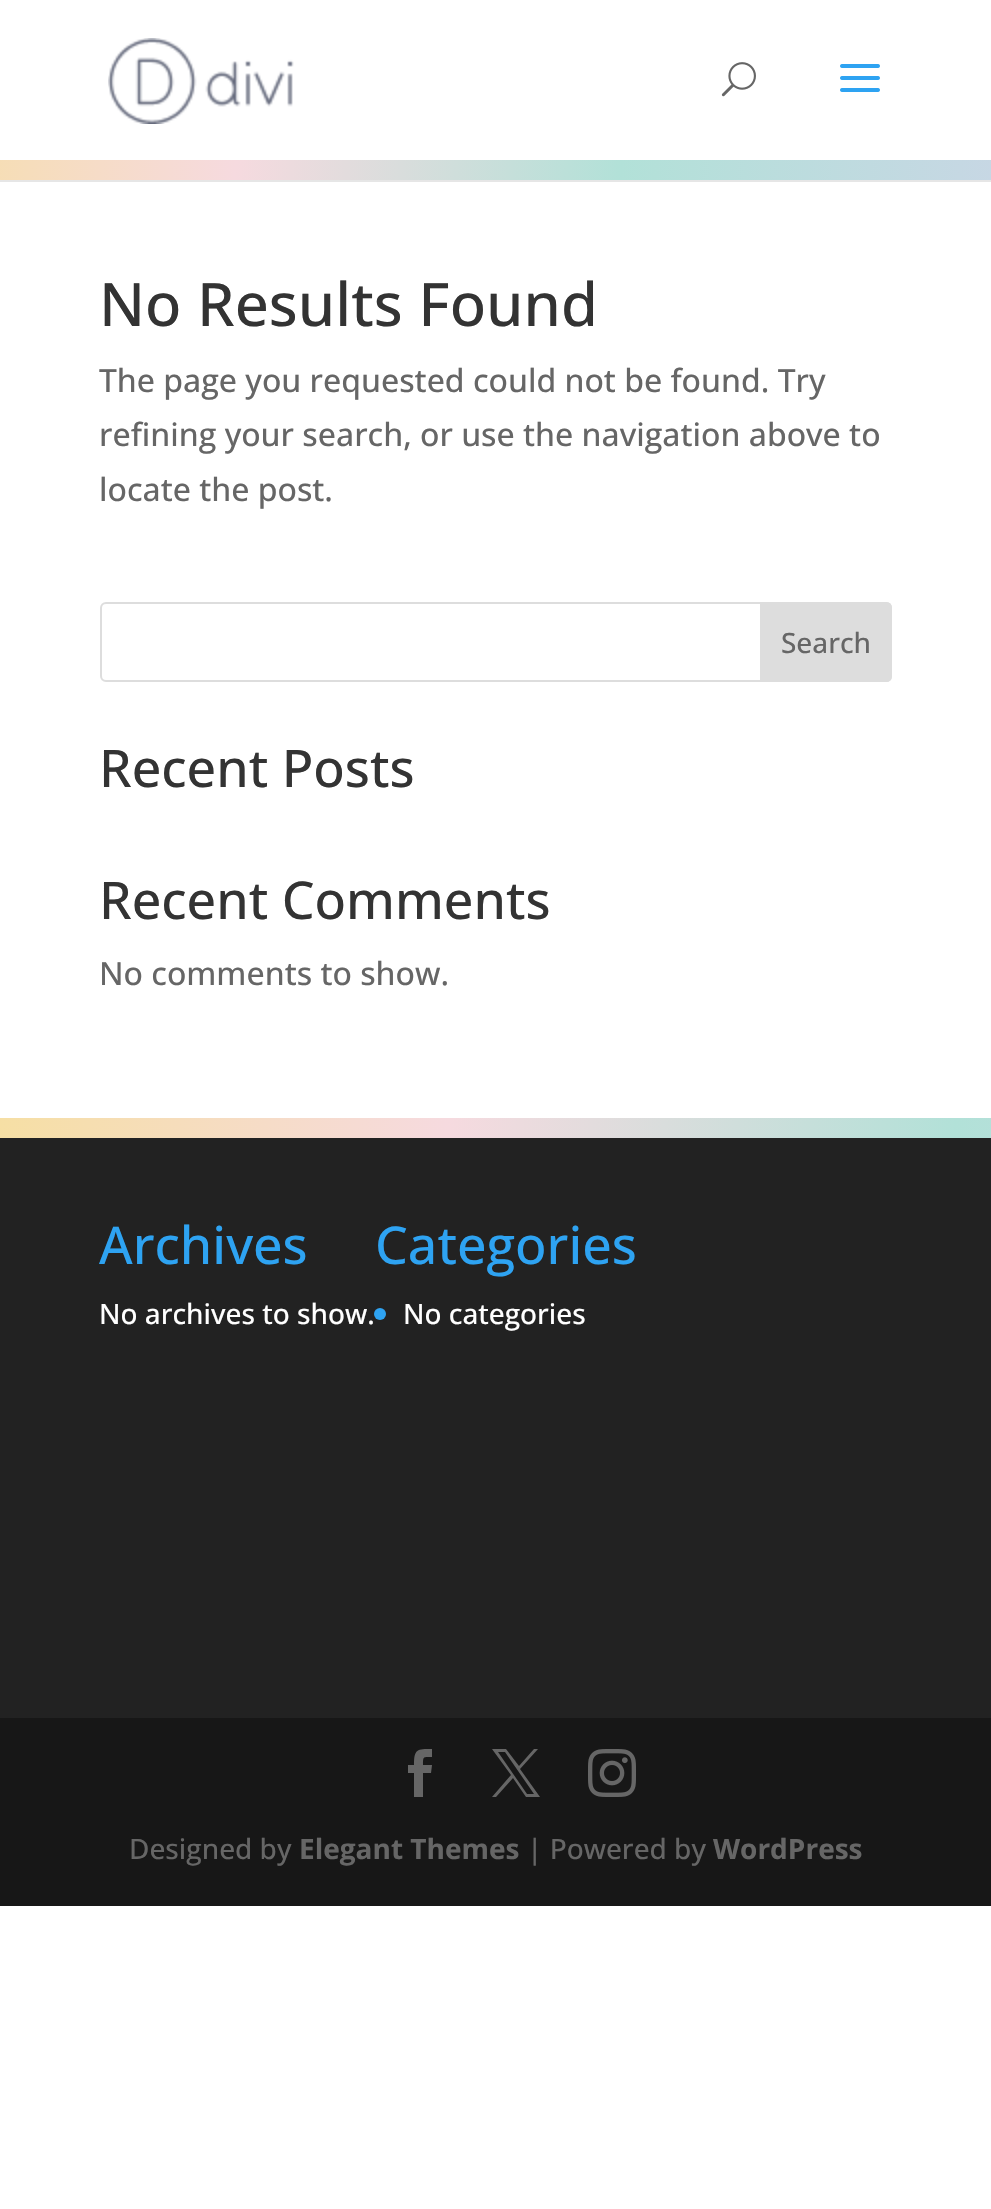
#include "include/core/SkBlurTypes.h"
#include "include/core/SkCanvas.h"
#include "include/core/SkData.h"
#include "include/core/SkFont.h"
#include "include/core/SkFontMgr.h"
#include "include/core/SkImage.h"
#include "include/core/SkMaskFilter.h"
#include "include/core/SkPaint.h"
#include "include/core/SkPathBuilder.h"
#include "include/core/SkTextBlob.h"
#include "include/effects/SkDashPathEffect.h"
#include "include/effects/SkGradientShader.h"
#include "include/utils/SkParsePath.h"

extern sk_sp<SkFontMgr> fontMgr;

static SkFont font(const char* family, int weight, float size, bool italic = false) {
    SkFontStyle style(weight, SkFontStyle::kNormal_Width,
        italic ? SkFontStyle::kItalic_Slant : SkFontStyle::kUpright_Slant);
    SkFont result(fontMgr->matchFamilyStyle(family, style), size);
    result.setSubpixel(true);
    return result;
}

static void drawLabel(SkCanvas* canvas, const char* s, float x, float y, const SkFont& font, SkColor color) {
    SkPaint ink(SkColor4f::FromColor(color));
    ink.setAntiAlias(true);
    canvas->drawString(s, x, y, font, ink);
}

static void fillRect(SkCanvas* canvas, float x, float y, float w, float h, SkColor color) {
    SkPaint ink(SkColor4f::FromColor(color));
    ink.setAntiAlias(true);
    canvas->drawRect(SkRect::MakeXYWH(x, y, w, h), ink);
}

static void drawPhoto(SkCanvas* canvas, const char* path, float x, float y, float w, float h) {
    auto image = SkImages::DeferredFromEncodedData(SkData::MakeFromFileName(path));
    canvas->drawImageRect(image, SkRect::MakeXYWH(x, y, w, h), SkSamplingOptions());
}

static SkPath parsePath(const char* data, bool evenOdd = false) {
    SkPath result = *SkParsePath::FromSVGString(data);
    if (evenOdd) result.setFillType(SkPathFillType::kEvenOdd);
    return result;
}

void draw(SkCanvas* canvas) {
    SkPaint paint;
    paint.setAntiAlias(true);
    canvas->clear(0xFFFFFFFF);
    fillRect(canvas, 0, 180, 991, 2, 0xFFE6E6E6);
    drawPhoto(canvas, "assets/img1.png", 0, 160, 991, 20);
    drawPhoto(canvas, "assets/img2.png", 108, 38, 186, 86);
    drawPhoto(canvas, "assets/img3.png", 721, 62, 35, 35);
    drawPhoto(canvas, "assets/img4.png", 840, 64, 40, 28);
    SkFont font1 = font("Open Sans", 500, 60);
    drawLabel(canvas, "No Results Found", 99, 326, font1, 0xFF333333);
    SkFont font2 = font("Open Sans", 500, 32);
    drawLabel(canvas, "The page you requested could not be found. Try", 99, 392, font2, 0xFF666666);
    drawLabel(canvas, "refining your search, or use the navigation above to", 99, 446, font2, 0xFF666666);
    drawLabel(canvas, "locate the post.", 99, 501, font2, 0xFF666666);
    paint.setStroke(true);
    paint.setStrokeWidth(2);
    paint.setColor(0xFFDDDDDD);
    canvas->drawRoundRect(SkRect::MakeXYWH(101, 603, 790, 78), 5, 5, paint);
    paint.setStroke(false);
    canvas->drawPath(parsePath("M761 603H886C889 603 891 605 891 608V676C891 679 889 681 886 681H761Z"), paint);
    paint.setStroke(true);
    canvas->drawPath(parsePath("M761 603H886C889 603 891 605 891 608V676C891 679 889 681 886 681H761Z"), paint);
    SkFont font3 = font("Open Sans", 500, 28);
    drawLabel(canvas, "Search", 781, 653, font3, 0xFF666666);
    SkFont font4 = font("Open Sans", 500, 52);
    drawLabel(canvas, "Recent Posts", 99, 787, font4, 0xFF333333);
    drawLabel(canvas, "Recent Comments", 99, 919, font4, 0xFF333333);
    drawLabel(canvas, "No comments to show.", 99, 985, font2, 0xFF666666);
    fillRect(canvas, 0, 1138, 991, 580, 0xFF222222);
    drawPhoto(canvas, "assets/img5.png", 0, 1118, 991, 20);
    drawLabel(canvas, "Archives", 99, 1264, font4, 0xFF2EA3F2);
    drawLabel(canvas, "No archives to show.", 99, 1324, font3, 0xFFFFFFFF);
    drawLabel(canvas, "Categories", 375, 1264, font4, 0xFF2EA3F2);
    paint.setStroke(false);
    paint.setColor(0xFF2EA3F2);
    canvas->drawCircle(380, 1314, 6, paint);
    drawLabel(canvas, "No categories", 403, 1324, font3, 0xFFFFFFFF);
    fillRect(canvas, 0, 1718, 991, 188, 0xFF171717);
    paint.setColor(0xFF666666);
    canvas->drawPath(parsePath("M414 1797H423V1773H431L432 1765H423C423 1756 423 1757 432 1757V1749C417 1749 414 1749 414 1765H408V1773H414Z"), paint);
    canvas->drawPath(parsePath("M492 1749L511 1775L492 1797H496L513 1778L526 1797H540L520 1769L538 1749H534L519 1766L506 1749ZM498 1752H505L534 1794H527Z"), paint);
    drawPhoto(canvas, "assets/img6.png", 588, 1749, 48, 48);
    drawLabel(canvas, "Designed by", 129, 1859, font3, 0xFF666666);
    SkFont font5 = font("Open Sans", 700, 28);
    drawLabel(canvas, "Elegant Themes", 299, 1859, font5, 0xFF666666);
    drawLabel(canvas, "| Powered by", 527, 1859, font3, 0xFF666666);
    drawLabel(canvas, "WordPress", 713, 1859, font5, 0xFF666666);
}
